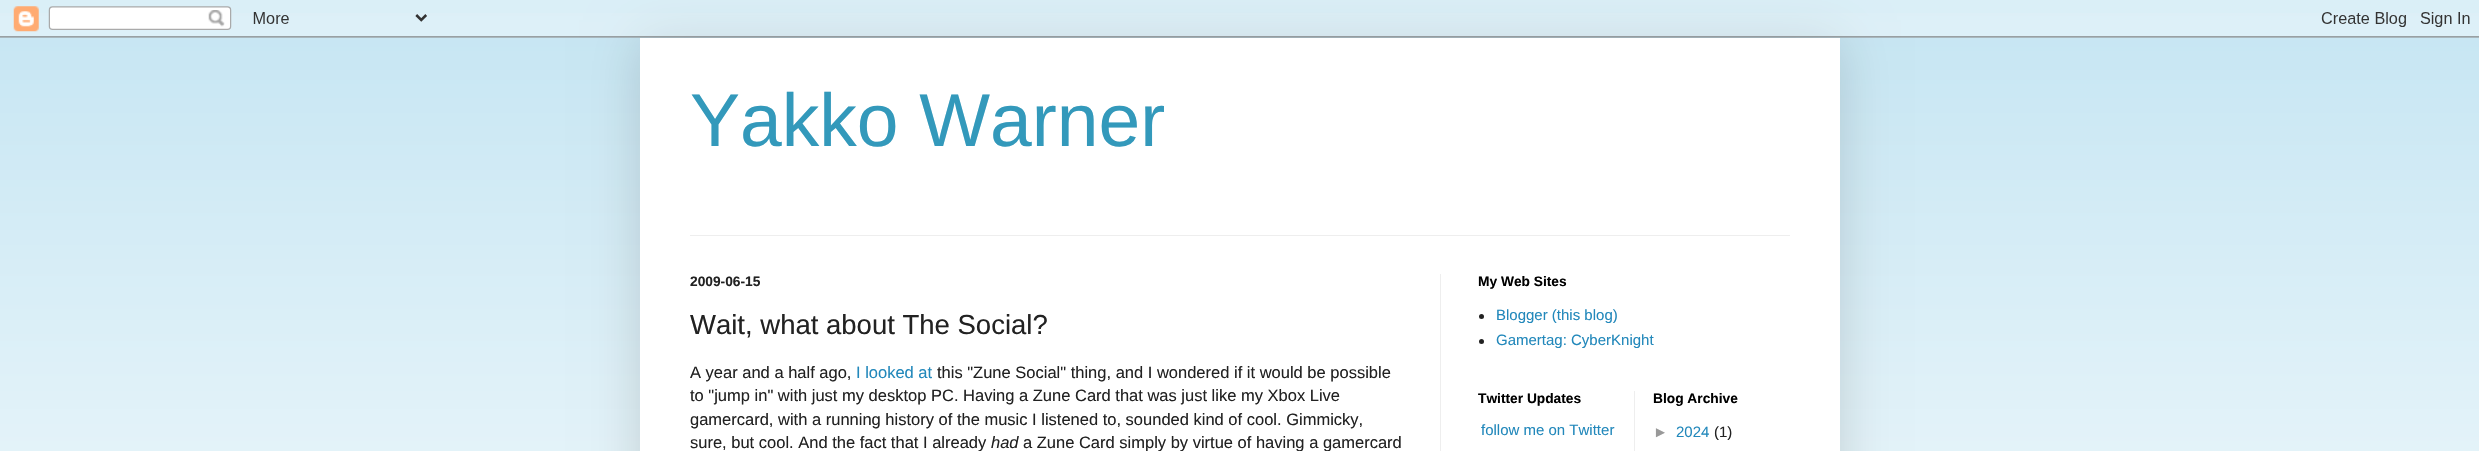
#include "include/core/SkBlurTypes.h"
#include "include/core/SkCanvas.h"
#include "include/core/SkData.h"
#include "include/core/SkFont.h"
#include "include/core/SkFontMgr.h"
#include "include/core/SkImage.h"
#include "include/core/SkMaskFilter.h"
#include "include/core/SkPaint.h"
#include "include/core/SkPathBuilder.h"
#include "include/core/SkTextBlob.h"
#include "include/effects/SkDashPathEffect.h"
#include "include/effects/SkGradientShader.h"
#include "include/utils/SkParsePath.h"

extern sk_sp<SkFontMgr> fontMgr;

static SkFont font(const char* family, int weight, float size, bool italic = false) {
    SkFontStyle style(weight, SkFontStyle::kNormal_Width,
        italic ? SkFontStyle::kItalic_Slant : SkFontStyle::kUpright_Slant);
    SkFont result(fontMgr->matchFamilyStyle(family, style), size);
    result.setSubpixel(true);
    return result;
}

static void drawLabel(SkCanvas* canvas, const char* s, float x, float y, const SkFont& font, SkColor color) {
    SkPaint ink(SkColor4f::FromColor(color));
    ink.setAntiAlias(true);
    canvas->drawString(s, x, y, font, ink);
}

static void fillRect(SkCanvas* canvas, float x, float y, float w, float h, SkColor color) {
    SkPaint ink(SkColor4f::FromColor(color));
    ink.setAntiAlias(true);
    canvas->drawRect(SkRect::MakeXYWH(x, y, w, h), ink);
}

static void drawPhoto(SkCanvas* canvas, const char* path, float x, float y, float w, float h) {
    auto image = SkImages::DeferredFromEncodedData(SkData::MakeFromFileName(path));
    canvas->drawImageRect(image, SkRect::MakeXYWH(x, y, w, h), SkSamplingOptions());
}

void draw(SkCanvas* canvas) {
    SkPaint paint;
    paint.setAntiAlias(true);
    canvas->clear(0xFFC2E4F2);
    drawPhoto(canvas, "assets/img2.png", 0, 13, 2479, 438);
    paint.setColor(0x26000000);
    paint.setMaskFilter(SkMaskFilter::MakeBlur(kNormal_SkBlurStyle, 25));
    canvas->drawRect(SkRect::MakeXYWH(640, 38, 1200, 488), paint);
    paint.setMaskFilter(nullptr);
    drawPhoto(canvas, "assets/img1.png", 0, 0, 2479, 38);
    fillRect(canvas, 640, 38, 1200, 413, 0xFFFFFFFF);
    SkFont font1 = font("Liberation Sans", 400, 75);
    drawLabel(canvas, "Yakko Warner", 690, 146, font1, 0xFF3399BB);
    fillRect(canvas, 690, 235, 1100, 1, 0xFFEEEEEE);
    fillRect(canvas, 1440, 274, 1, 177, 0xFFEEEEEE);
    SkFont font2 = font("Liberation Sans", 700, 13.75f);
    drawLabel(canvas, "2009-06-15", 690, 286, font2, 0xFF222222);
    SkFont font3 = font("Liberation Sans", 400, 27.5f);
    drawLabel(canvas, "Wait, what about The Social?", 690, 334, font3, 0xFF222222);
    SkFont font4 = font("Liberation Sans", 400, 16.5f);
    drawLabel(canvas, "A year and a half ago,", 690, 378, font4, 0xFF222222);
    drawLabel(canvas, "I looked at", 856, 378, font4, 0xFF2288BB);
    drawLabel(canvas, "this \"Zune Social\" thing, and I wondered if it would be possible", 937, 378, font4, 0xFF222222);
    drawLabel(canvas, "to \"jump in\" with just my desktop PC. Having a Zune Card that was just like my Xbox Live", 690, 401, font4, 0xFF222222);
    drawLabel(canvas, "gamercard, with a running history of the music I listened to, sounded kind of cool. Gimmicky,", 690, 425, font4, 0xFF222222);
    drawLabel(canvas, "sure, but cool. And the fact that I already", 690, 448, font4, 0xFF222222);
    SkFont font5 = font("Liberation Sans", 400, 16.5f, true);
    drawLabel(canvas, "had", 991, 448, font5, 0xFF222222);
    drawLabel(canvas, "a Zune Card simply by virtue of having a gamercard", 1023, 448, font4, 0xFF222222);
    drawLabel(canvas, "My Web Sites", 1478, 286, font2, 0xFF000000);
    paint.setColor(0xFF222222);
    canvas->drawCircle(1481.5f, 316.5f, 2.5f, paint);
    SkFont font6 = font("Liberation Sans", 400, 15);
    drawLabel(canvas, "Blogger (this blog)", 1496, 320, font6, 0xFF2288BB);
    canvas->drawCircle(1481.5f, 341.5f, 2.5f, paint);
    drawLabel(canvas, "Gamertag: CyberKnight", 1496, 345, font6, 0xFF2288BB);
    drawLabel(canvas, "Twitter Updates", 1478, 403, font2, 0xFF000000);
    drawLabel(canvas, "follow me on Twitter", 1481, 435, font6, 0xFF2288BB);
    fillRect(canvas, 1634, 391, 1, 60, 0xFFEEEEEE);
    drawLabel(canvas, "Blog Archive", 1653, 403, font2, 0xFF000000);
    drawLabel(canvas, "►", 1653, 437, font6, 0xFF999999);
    drawLabel(canvas, "2024", 1676, 437, font6, 0xFF2288BB);
    drawLabel(canvas, "(1)", 1714, 437, font6, 0xFF222222);
}
